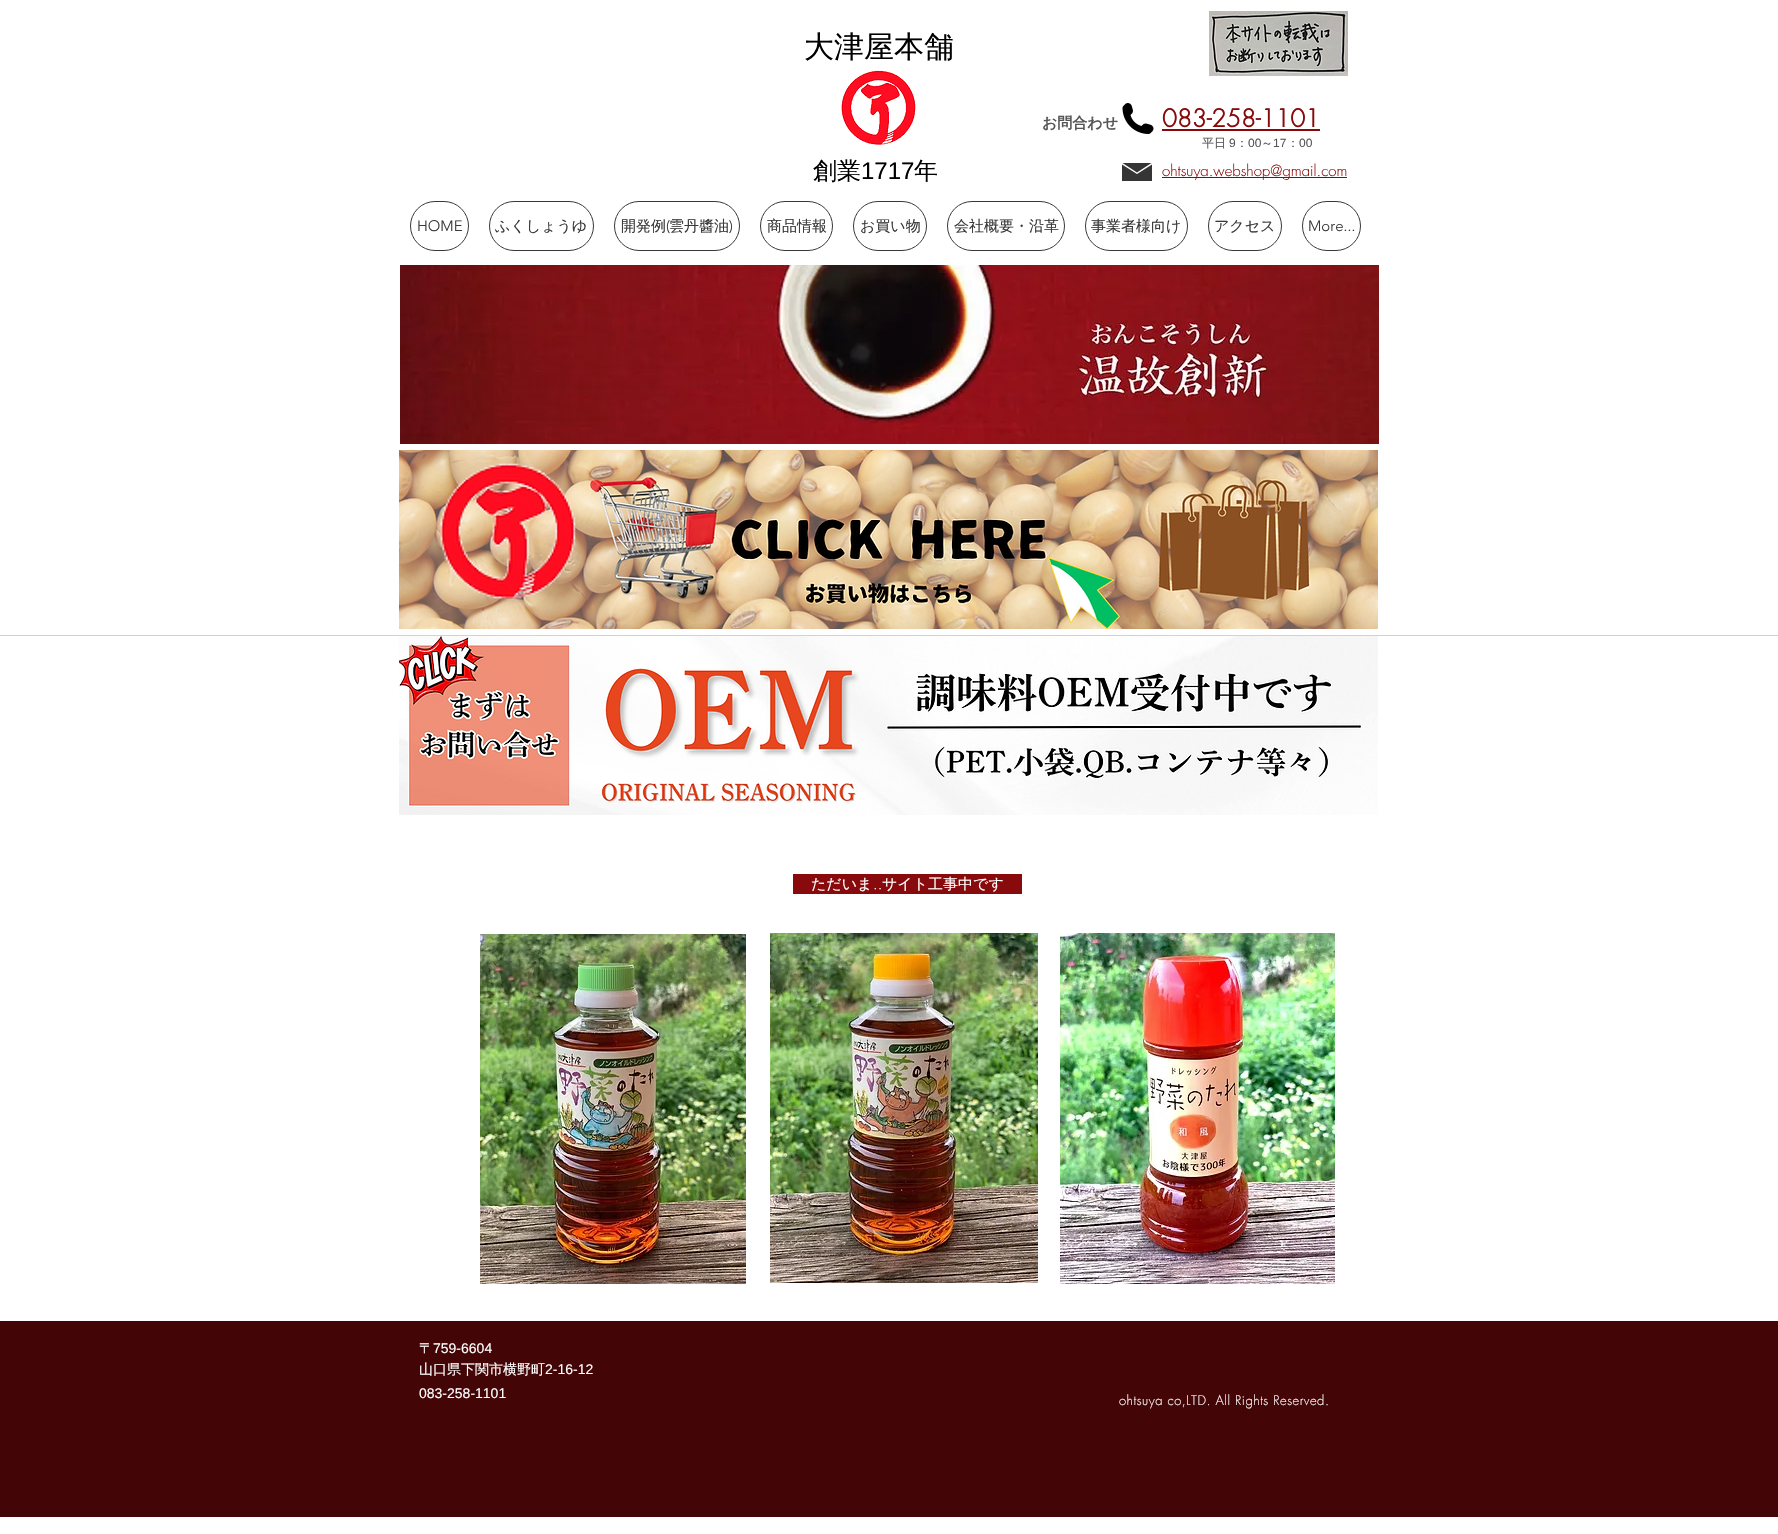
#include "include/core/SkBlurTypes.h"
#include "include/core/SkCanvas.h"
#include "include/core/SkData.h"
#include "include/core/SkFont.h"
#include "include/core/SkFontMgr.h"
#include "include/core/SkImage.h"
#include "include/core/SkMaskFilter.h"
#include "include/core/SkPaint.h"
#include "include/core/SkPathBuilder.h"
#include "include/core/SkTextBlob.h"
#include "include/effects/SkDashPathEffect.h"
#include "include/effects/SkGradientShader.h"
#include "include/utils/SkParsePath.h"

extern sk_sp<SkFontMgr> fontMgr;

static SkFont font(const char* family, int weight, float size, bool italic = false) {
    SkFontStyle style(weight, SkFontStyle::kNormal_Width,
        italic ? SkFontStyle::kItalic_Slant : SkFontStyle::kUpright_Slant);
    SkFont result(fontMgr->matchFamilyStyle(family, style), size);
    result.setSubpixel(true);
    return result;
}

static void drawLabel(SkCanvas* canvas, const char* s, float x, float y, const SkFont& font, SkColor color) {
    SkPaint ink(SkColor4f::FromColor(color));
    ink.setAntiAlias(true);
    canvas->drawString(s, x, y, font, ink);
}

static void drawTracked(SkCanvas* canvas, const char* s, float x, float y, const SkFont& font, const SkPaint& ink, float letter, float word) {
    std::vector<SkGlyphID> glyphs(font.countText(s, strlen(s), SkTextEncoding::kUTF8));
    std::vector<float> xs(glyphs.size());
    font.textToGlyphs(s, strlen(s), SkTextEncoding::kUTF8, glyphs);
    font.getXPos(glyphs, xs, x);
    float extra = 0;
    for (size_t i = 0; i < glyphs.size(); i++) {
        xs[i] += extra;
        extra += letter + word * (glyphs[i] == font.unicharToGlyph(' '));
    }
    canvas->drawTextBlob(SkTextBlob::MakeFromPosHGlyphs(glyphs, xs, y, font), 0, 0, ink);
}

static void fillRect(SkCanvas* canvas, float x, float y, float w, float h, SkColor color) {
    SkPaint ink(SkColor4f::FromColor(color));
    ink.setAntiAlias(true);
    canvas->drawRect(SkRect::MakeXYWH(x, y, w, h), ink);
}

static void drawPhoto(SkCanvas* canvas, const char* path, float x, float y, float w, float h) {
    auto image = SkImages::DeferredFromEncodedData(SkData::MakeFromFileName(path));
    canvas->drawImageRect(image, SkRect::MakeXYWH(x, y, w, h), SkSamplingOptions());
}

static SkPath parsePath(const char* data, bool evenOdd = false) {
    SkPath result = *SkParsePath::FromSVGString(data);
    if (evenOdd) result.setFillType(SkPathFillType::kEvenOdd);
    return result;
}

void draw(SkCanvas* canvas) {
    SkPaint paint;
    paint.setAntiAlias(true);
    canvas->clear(0xFFFFFFFF);
    SkFont font1 = font("WenQuanYi Zen Hei", 500, 30);
    drawLabel(canvas, "大津屋本舗", 804, 57, font1, 0xFF000000);
    drawPhoto(canvas, "assets/img1.png", 1209, 11, 139, 65);
    drawPhoto(canvas, "assets/img2.png", 841, 70, 75, 75);
    SkFont font2 = font("WenQuanYi Zen Hei", 700, 15);
    drawLabel(canvas, "お問合わせ", 1042, 128, font2, 0xFF565656);
    drawPhoto(canvas, "assets/img3.png", 1122, 103, 32, 31);
    SkFont font3 = font("futura", 700, 24);
    drawLabel(canvas, "083-258-1101", 1162, 127, font3, 0xFF880A0C);
    fillRect(canvas, 1162, 129, 158, 2, 0xFF880A0C);
    SkFont font4 = font("WenQuanYi Zen Hei", 500, 12);
    drawLabel(canvas, "平日", 1202, 147, font4, 0xFF565656);
    SkFont font5 = font("Liberation Sans", 400, 12);
    drawLabel(canvas, "9", 1229, 147, font5, 0xFF565656);
    drawLabel(canvas, "：", 1236, 147, font4, 0xFF565656);
    drawLabel(canvas, "00", 1248, 147, font5, 0xFF565656);
    drawLabel(canvas, "～", 1261, 147, font4, 0xFF565656);
    drawLabel(canvas, "17", 1273, 147, font5, 0xFF565656);
    drawLabel(canvas, "：", 1287, 147, font4, 0xFF565656);
    drawLabel(canvas, "00", 1299, 147, font5, 0xFF565656);
    SkFont font6 = font("WenQuanYi Zen Hei", 500, 24);
    drawLabel(canvas, "創業", 813, 179, font6, 0xFF000000);
    SkFont font7 = font("Liberation Sans", 400, 24);
    drawLabel(canvas, "1717", 861, 179, font7, 0xFF000000);
    drawLabel(canvas, "年", 914, 179, font6, 0xFF000000);
    paint.setColor(0xFF363535);
    canvas->drawPath(parsePath("M1137 172.5L1122.5 163H1151.5ZM1152 164.5L1137 174L1122 164.5V181H1152Z"), paint);
    fillRect(canvas, 1162, 177, 185, 1, 0xFF880A0C);
    SkFont font8 = font("futura", 300, 15);
    drawLabel(canvas, "ohtsuya.webshop@gmail.com", 1162, 176, font8, 0xFF880A0C);
    paint.setStroke(true);
    paint.setStrokeWidth(1);
    paint.setColor(0xFF383838);
    canvas->drawRoundRect(SkRect::MakeXYWH(410.5f, 201.5f, 58, 49), 24.5f, 24.5f, paint);
    SkFont font9 = font("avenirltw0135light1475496", 300, 15);
    drawLabel(canvas, "HOME", 417, 231, font9, 0xFF383838);
    canvas->drawRoundRect(SkRect::MakeXYWH(489.5f, 201.5f, 104, 49), 24.5f, 24.5f, paint);
    SkFont font10 = font("WenQuanYi Zen Hei", 500, 15);
    drawLabel(canvas, "ふくしょうゆ", 495, 231, font10, 0xFF383838);
    canvas->drawRoundRect(SkRect::MakeXYWH(614.5f, 201.5f, 125, 49), 24.5f, 24.5f, paint);
    drawLabel(canvas, "開発例", 621, 231, font10, 0xFF383838);
    drawLabel(canvas, "(", 666, 231, font9, 0xFF383838);
    drawLabel(canvas, "雲丹醬油", 669, 231, font10, 0xFF383838);
    drawLabel(canvas, ")", 729, 231, font9, 0xFF383838);
    canvas->drawRoundRect(SkRect::MakeXYWH(760.5f, 201.5f, 72, 49), 24.5f, 24.5f, paint);
    drawLabel(canvas, "商品情報", 767, 231, font10, 0xFF383838);
    canvas->drawRoundRect(SkRect::MakeXYWH(853.5f, 201.5f, 73, 49), 24.5f, 24.5f, paint);
    drawLabel(canvas, "お買い物", 860, 231, font10, 0xFF383838);
    canvas->drawRoundRect(SkRect::MakeXYWH(947.5f, 201.5f, 117, 49), 24.5f, 24.5f, paint);
    drawLabel(canvas, "会社概要・沿革", 954, 231, font10, 0xFF383838);
    canvas->drawRoundRect(SkRect::MakeXYWH(1085.5f, 201.5f, 102, 49), 24.5f, 24.5f, paint);
    drawLabel(canvas, "事業者様向け", 1091, 231, font10, 0xFF383838);
    canvas->drawRoundRect(SkRect::MakeXYWH(1208.5f, 201.5f, 73, 49), 24.5f, 24.5f, paint);
    drawLabel(canvas, "アクセス", 1214, 231, font10, 0xFF383838);
    canvas->drawRoundRect(SkRect::MakeXYWH(1302.5f, 201.5f, 58, 49), 24.5f, 24.5f, paint);
    drawLabel(canvas, "More...", 1308, 231, font9, 0xFF383838);
    drawPhoto(canvas, "assets/img4.png", 400, 265, 979, 179);
    drawPhoto(canvas, "assets/img5.png", 399, 450, 979, 179);
    fillRect(canvas, 0, 635, 1778, 1, 0xFFF0C5C5);
    drawPhoto(canvas, "assets/img6.png", 399, 636, 979, 179);
    fillRect(canvas, 793, 874, 229, 20, 0xFF880A0C);
    drawLabel(canvas, "ただいま", 811, 889, font10, 0xFFFFFFFF);
    drawLabel(canvas, "..", 873, 889, font8, 0xFFFFFFFF);
    drawLabel(canvas, "サイト工事中です", 882, 889, font10, 0xFFFFFFFF);
    drawPhoto(canvas, "assets/img7.png", 480, 934, 266, 350);
    drawPhoto(canvas, "assets/img8.png", 770, 933, 268, 350);
    drawPhoto(canvas, "assets/img9.png", 1060, 933, 275, 351);
    fillRect(canvas, 0, 1321, 1778, 196, 0xFF440506);
    SkFont font11 = font("WenQuanYi Zen Hei", 500, 14);
    drawLabel(canvas, "〒", 419, 1353, font11, 0xFFFFFFFF);
    SkFont font12 = font("Liberation Sans", 400, 14);
    drawLabel(canvas, "759-6604", 433, 1353, font12, 0xFFFFFFFF);
    drawLabel(canvas, "山口県下関市横野町", 419, 1374, font11, 0xFFFFFFFF);
    drawLabel(canvas, "2-16-12", 545, 1374, font12, 0xFFFFFFFF);
    drawLabel(canvas, "083-258-1101", 419, 1398, font12, 0xFFFFFFFF);
    SkFont font13 = font("futura", 300, 13);
    paint.setStroke(false);
    paint.setColor(0xFFFFFFFF);
    drawTracked(canvas, "ohtsuya co,LTD. All Rights Reserved.", 1119, 1405, font13, paint, 0.5f, 0);
}
